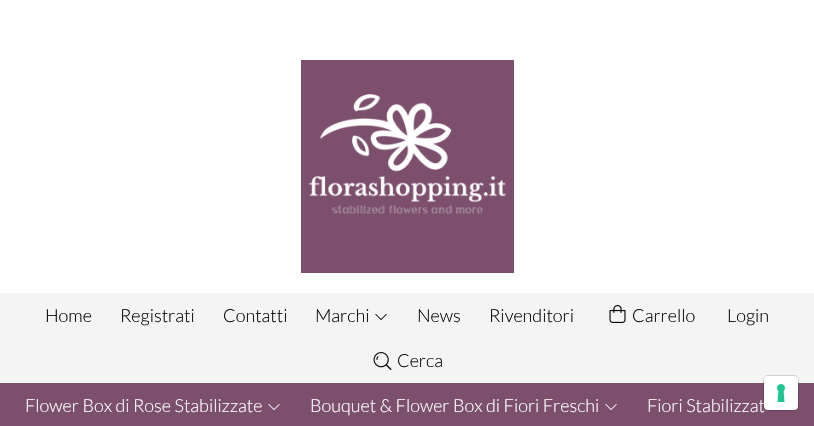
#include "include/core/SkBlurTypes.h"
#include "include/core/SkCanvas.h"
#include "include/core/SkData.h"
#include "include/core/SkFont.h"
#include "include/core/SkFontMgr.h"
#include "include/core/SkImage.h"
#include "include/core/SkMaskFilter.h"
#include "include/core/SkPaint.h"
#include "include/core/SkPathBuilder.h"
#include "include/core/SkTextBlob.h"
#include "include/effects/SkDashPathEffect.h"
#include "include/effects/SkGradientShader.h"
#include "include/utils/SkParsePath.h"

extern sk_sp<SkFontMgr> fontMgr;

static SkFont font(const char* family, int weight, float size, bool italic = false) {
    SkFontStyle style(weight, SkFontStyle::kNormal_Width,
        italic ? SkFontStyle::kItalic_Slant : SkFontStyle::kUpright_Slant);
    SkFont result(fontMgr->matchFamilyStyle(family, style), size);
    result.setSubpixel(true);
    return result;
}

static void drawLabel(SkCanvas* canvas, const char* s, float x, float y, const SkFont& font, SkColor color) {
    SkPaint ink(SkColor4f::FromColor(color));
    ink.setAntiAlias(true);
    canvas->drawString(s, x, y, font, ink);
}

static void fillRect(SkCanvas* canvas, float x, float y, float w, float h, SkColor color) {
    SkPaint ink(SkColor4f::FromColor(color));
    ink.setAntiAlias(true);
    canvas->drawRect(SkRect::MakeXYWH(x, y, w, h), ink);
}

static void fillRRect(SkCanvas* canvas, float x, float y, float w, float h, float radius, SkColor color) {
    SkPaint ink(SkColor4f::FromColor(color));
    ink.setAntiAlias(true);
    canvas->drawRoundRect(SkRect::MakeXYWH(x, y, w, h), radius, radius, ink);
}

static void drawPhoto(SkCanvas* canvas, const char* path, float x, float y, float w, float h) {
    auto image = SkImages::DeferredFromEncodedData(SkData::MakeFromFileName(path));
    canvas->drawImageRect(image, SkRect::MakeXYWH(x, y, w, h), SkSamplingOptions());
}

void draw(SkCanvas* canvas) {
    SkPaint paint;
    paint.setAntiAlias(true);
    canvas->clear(0xFFFFFFFF);
    drawPhoto(canvas, "assets/img1.png", 301, 60, 213, 213);
    fillRect(canvas, 0, 293, 814, 90, 0xFFF4F4F4);
    SkFont font1 = font("Lato", 300, 18);
    drawLabel(canvas, "Home", 45, 322, font1, 0xFF000000);
    drawLabel(canvas, "Registrati", 120, 322, font1, 0xFF000000);
    drawLabel(canvas, "Contatti", 223, 322, font1, 0xFF000000);
    drawLabel(canvas, "Marchi", 315, 322, font1, 0xFF000000);
    drawPhoto(canvas, "assets/img2.png", 375, 314, 12, 6);
    drawLabel(canvas, "News", 417, 322, font1, 0xFF000000);
    drawLabel(canvas, "Rivenditori", 489, 322, font1, 0xFF000000);
    drawPhoto(canvas, "assets/img3.png", 609, 305, 17, 18);
    drawLabel(canvas, "Carrello", 632, 322, font1, 0xFF000000);
    drawLabel(canvas, "Login", 727, 322, font1, 0xFF000000);
    drawPhoto(canvas, "assets/img4.png", 373, 352, 19, 18);
    drawLabel(canvas, "Cerca", 397, 367, font1, 0xFF000000);
    fillRect(canvas, 0, 383, 814, 43, 0xFF7C506D);
    drawLabel(canvas, "Flower Box di Rose Stabilizzate", 25, 412, font1, 0xFFFFFFFF);
    drawPhoto(canvas, "assets/img5.png", 268, 404, 12, 6);
    drawLabel(canvas, "Bouquet & Flower Box di Fiori Freschi", 310, 412, font1, 0xFFFFFFFF);
    drawPhoto(canvas, "assets/img5.png", 605, 404, 12, 6);
    drawLabel(canvas, "Fiori Stabilizzat", 647, 412, font1, 0xFFFFFFFF);
    paint.setStroke(true);
    paint.setStrokeWidth(1);
    paint.setColor(0x26000000);
    canvas->drawRoundRect(SkRect::MakeXYWH(763.5f, 375.5f, 35, 35), 4.5f, 4.5f, paint);
    fillRRect(canvas, 764, 376, 34, 34, 4, 0xFFFFFFFF);
    drawPhoto(canvas, "assets/img6.png", 777, 384, 8, 18);
}
